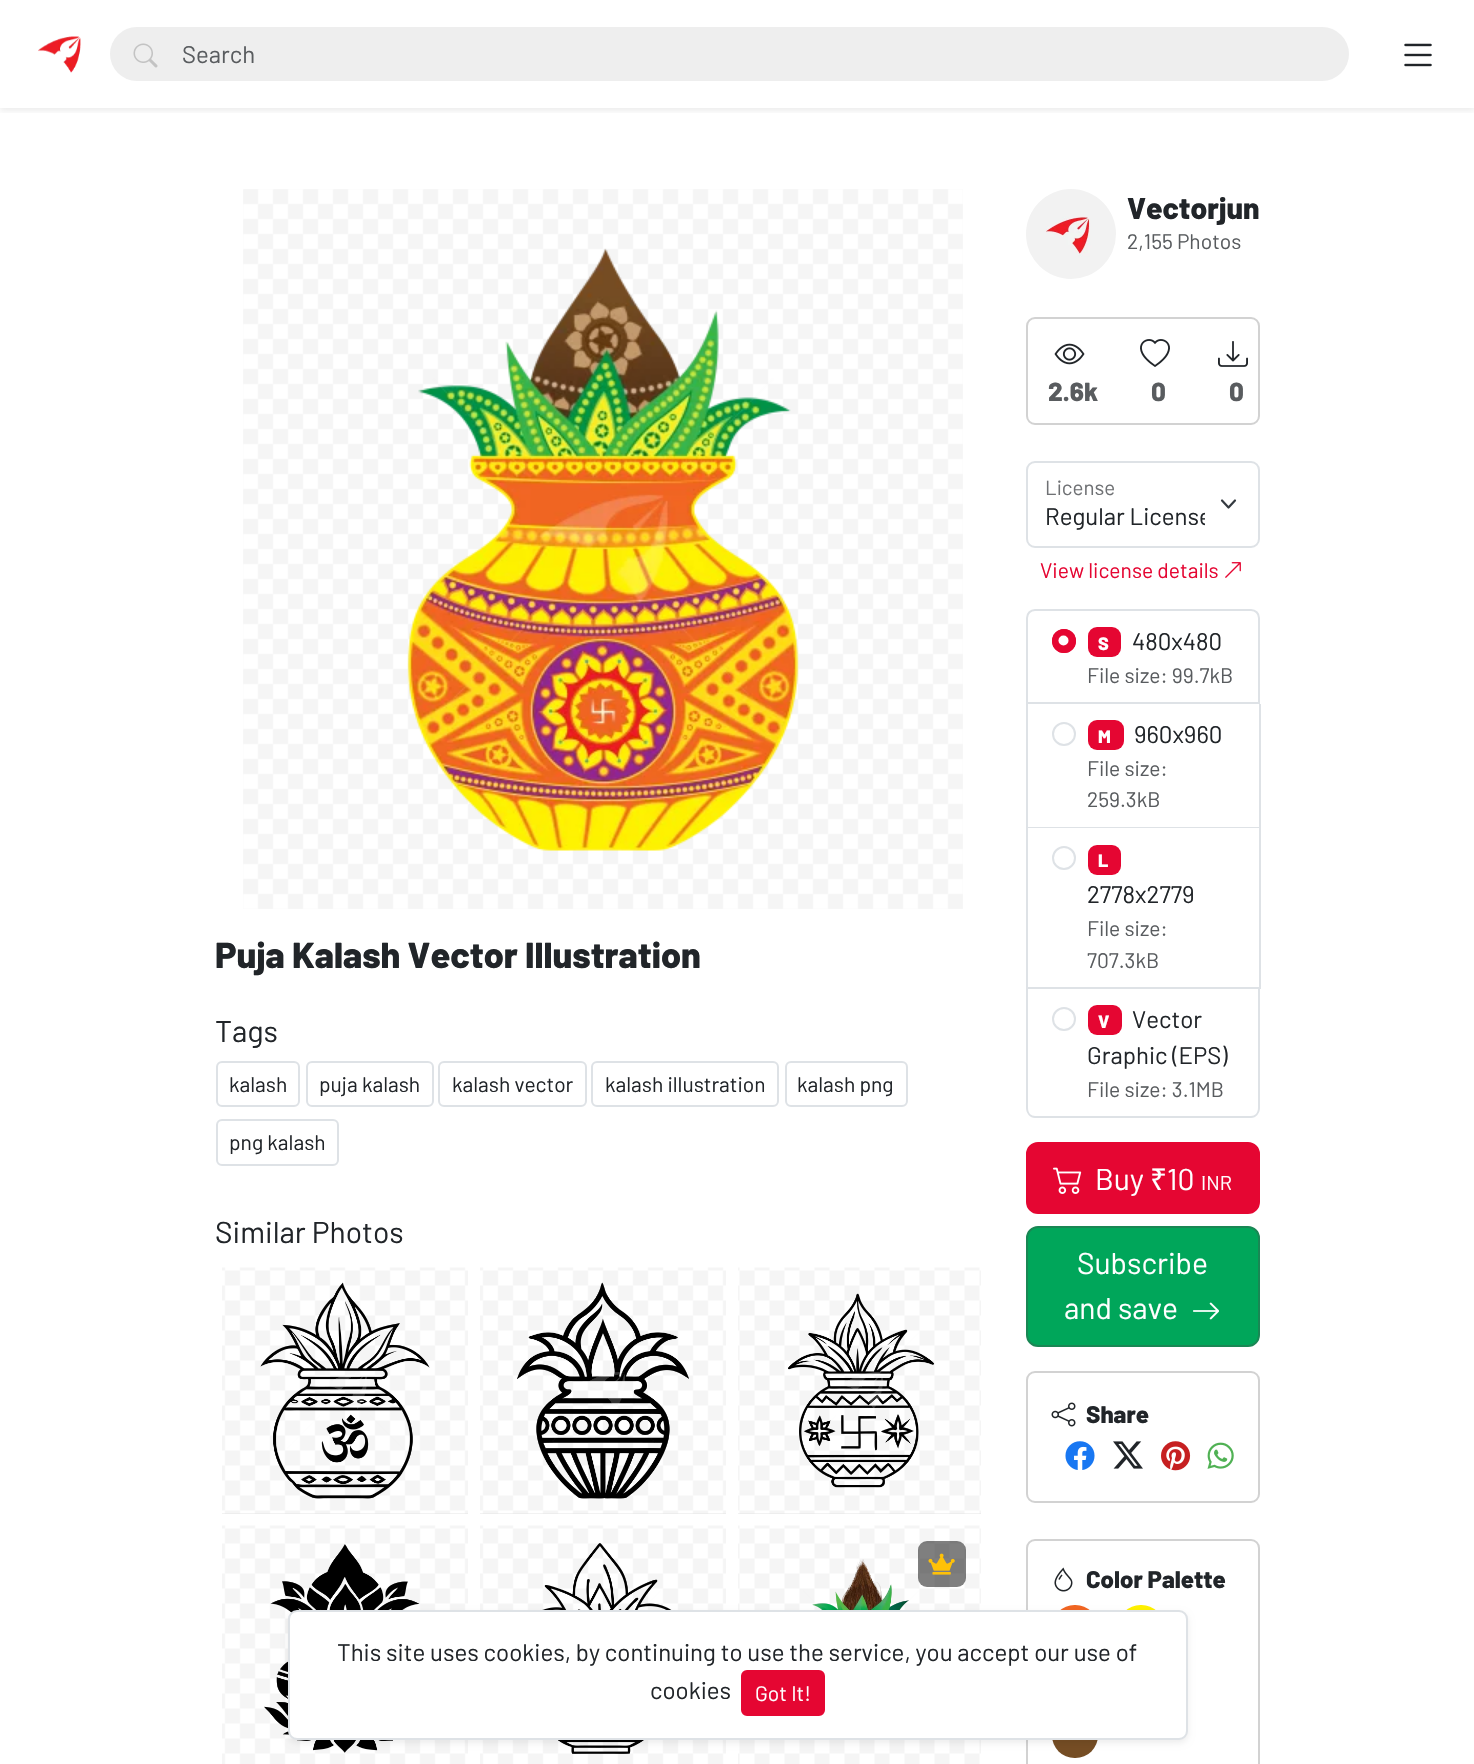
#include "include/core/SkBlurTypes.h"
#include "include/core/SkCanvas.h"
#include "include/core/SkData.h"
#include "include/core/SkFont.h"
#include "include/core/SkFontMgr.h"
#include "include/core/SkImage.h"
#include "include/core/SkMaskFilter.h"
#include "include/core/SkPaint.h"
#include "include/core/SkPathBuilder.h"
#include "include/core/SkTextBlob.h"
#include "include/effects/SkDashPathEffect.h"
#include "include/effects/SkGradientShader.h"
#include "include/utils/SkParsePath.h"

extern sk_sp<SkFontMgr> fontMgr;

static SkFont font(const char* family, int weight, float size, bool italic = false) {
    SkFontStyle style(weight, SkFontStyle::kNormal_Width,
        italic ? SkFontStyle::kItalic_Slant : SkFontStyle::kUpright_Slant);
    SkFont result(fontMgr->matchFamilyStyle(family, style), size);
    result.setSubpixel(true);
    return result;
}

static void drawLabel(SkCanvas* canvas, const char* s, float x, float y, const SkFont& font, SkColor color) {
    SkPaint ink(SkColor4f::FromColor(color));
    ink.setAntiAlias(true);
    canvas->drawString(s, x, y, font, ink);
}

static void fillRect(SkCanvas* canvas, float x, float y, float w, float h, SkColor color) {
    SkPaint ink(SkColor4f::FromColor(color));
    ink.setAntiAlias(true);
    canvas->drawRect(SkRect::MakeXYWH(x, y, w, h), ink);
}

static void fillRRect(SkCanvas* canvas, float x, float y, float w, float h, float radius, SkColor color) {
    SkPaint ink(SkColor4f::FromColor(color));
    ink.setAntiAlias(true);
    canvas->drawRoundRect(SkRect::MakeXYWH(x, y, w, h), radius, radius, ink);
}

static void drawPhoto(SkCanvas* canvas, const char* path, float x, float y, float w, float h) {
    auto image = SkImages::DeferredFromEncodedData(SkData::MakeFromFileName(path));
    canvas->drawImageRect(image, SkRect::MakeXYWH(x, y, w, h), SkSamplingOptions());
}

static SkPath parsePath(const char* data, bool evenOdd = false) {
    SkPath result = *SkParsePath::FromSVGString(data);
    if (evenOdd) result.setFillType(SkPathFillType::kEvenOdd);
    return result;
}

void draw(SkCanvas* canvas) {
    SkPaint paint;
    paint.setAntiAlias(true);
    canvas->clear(0xFFFFFFFF);
    canvas->save();
    canvas->clipRect(SkRect::MakeXYWH(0, 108, 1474, 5));
    paint.setColor(0x12000000);
    paint.setMaskFilter(SkMaskFilter::MakeBlur(kNormal_SkBlurStyle, 3));
    canvas->drawRect(SkRect::MakeXYWH(0, 3, 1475, 108), paint);
    paint.setMaskFilter(nullptr);
    canvas->restore();
    drawPhoto(canvas, "assets/img1.png", 38, 36, 43, 37);
    fillRRect(canvas, 110, 27, 1239, 54, 27, 0xFFEEEEEE);
    drawPhoto(canvas, "assets/img2.png", 133, 43, 25, 25);
    SkFont font1 = font("Barlow", 400, 24);
    drawLabel(canvas, "Search", 182, 63, font1, 0xFF595C5F);
    drawPhoto(canvas, "assets/img3.png", 1404, 43, 28, 24);
    drawPhoto(canvas, "assets/img4.png", 243, 189, 720, 720);
    drawPhoto(canvas, "assets/img5.png", 407, 248, 392, 603);
    SkFont font2 = font("Barlow", 800, 36);
    drawLabel(canvas, "Puja Kalash Vector Illustration", 215, 968, font2, 0xFF212529);
    SkFont font3 = font("Barlow", 400, 30);
    drawLabel(canvas, "Tags", 215, 1042, font3, 0xFF212529);
    paint.setStroke(true);
    paint.setStrokeWidth(2);
    paint.setColor(0xFFDEE2E6);
    canvas->drawRoundRect(SkRect::MakeXYWH(217, 1062, 82, 44), 5, 5, paint);
    SkFont font4 = font("Barlow", 400, 21);
    drawLabel(canvas, "kalash", 229, 1092, font4, 0xFF212529);
    canvas->drawRoundRect(SkRect::MakeXYWH(307, 1062, 126, 44), 5, 5, paint);
    drawLabel(canvas, "puja kalash", 319, 1092, font4, 0xFF212529);
    canvas->drawRoundRect(SkRect::MakeXYWH(439, 1062, 147, 44), 5, 5, paint);
    drawLabel(canvas, "kalash vector", 452, 1092, font4, 0xFF212529);
    canvas->drawRoundRect(SkRect::MakeXYWH(592, 1062, 186, 44), 5, 5, paint);
    drawLabel(canvas, "kalash illustration", 605, 1092, font4, 0xFF212529);
    canvas->drawRoundRect(SkRect::MakeXYWH(786, 1062, 121, 44), 5, 5, paint);
    drawLabel(canvas, "kalash png", 797, 1092, font4, 0xFF212529);
    canvas->drawRoundRect(SkRect::MakeXYWH(217, 1120, 121, 45), 5, 5, paint);
    drawLabel(canvas, "png kalash", 229, 1150, font4, 0xFF212529);
    drawLabel(canvas, "Similar Photos", 215, 1243, font3, 0xFF212529);
    fillRect(canvas, 222, 1513, 246, 1, 0xFFE4E4E4);
    drawPhoto(canvas, "assets/img6.png", 222, 1267, 246, 247);
    drawPhoto(canvas, "assets/img7.png", 260, 1282, 170, 217);
    fillRect(canvas, 480, 1513, 246, 1, 0xFFE4E4E4);
    drawPhoto(canvas, "assets/img6.png", 480, 1267, 246, 247);
    drawPhoto(canvas, "assets/img8.png", 517, 1282, 172, 217);
    fillRect(canvas, 738, 1513, 243, 1, 0xFFE4E4E4);
    drawPhoto(canvas, "assets/img9.png", 738, 1267, 243, 247);
    drawPhoto(canvas, "assets/img10.png", 788, 1293, 147, 195);
    drawPhoto(canvas, "assets/img11.png", 222, 1525, 246, 239);
    drawPhoto(canvas, "assets/img12.png", 264, 1544, 156, 209);
    drawPhoto(canvas, "assets/img11.png", 480, 1525, 246, 239);
    drawPhoto(canvas, "assets/img13.png", 542, 1543, 130, 211);
    drawPhoto(canvas, "assets/img14.png", 738, 1525, 243, 239);
    drawPhoto(canvas, "assets/img15.png", 803, 1559, 116, 51);
    fillRRect(canvas, 918, 1541, 48, 46, 9, 0x80000000);
    drawPhoto(canvas, "assets/img16.png", 928, 1553, 27, 22);
    drawPhoto(canvas, "assets/img17.png", 1026, 189, 90, 90);
    SkFont font5 = font("Barlow", 800, 30);
    drawLabel(canvas, "Vectorjun", 1127, 219, font5, 0xFF212529);
    drawLabel(canvas, "2,155 Photos", 1127, 249, font4, 0xFF595C5F);
    paint.setColor(0xFFD2D2D2);
    canvas->drawRoundRect(SkRect::MakeXYWH(1027, 318, 232, 106), 8, 8, paint);
    drawPhoto(canvas, "assets/img18.png", 1054, 343, 31, 22);
    SkFont font6 = font("Barlow", 800, 26);
    drawLabel(canvas, "2.6k", 1048, 401, font6, 0xFF595C5F);
    drawPhoto(canvas, "assets/img19.png", 1140, 339, 30, 28);
    drawLabel(canvas, "0", 1151, 401, font6, 0xFF595C5F);
    drawPhoto(canvas, "assets/img20.png", 1218, 341, 30, 26);
    drawLabel(canvas, "0", 1229, 401, font6, 0xFF595C5F);
    paint.setStrokeWidth(2.2f);
    paint.setStrokeCap(SkPaint::kRound_Cap);
    paint.setStrokeJoin(SkPaint::kRound_Join);
    paint.setColor(0xFF343A40);
    canvas->drawPath(parsePath("M1222 500.5L1228.5 507.5L1235 500.5"), paint);
    paint.setStrokeWidth(2);
    paint.setStrokeCap(SkPaint::kButt_Cap);
    paint.setStrokeJoin(SkPaint::kMiter_Join);
    paint.setColor(0xFFDEE2E6);
    canvas->drawRoundRect(SkRect::MakeXYWH(1027, 462, 232, 85), 8, 8, paint);
    SkFont font7 = font("Barlow", 400, 20.5f);
    drawLabel(canvas, "License", 1045, 495, font7, 0xFF6F7174);
    canvas->save();
    canvas->clipRect(SkRect::MakeXYWH(1046, 501, 159, 30));
    drawLabel(canvas, "Regular License", 1045, 525, font1, 0xFF212529);
    canvas->restore();
    drawLabel(canvas, "View license details", 1040, 578, font4, 0xFFE50632);
    drawPhoto(canvas, "assets/img21.png", 1225, 562, 16, 16);
    canvas->drawPath(parsePath("M1035 610H1251C1255.5 610 1259 613.5 1259 618V703H1027V618C1027 613.5 1030.5 610 1035 610Z"), paint);
    paint.setStroke(false);
    paint.setColor(0xFFE50632);
    canvas->drawCircle(1064, 641, 12, paint);
    paint.setColor(0xFFFFFFFF);
    canvas->drawCircle(1063.5f, 640.5f, 5, paint);
    paint.setStroke(true);
    paint.setColor(0xFFE50632);
    canvas->drawCircle(1064, 641, 11, paint);
    fillRRect(canvas, 1088, 627, 33, 30, 9, 0xFFE50632);
    SkFont font8 = font("Barlow", 800, 18);
    drawLabel(canvas, "S", 1098, 650, font8, 0xFFFFFFFF);
    drawLabel(canvas, "480x480", 1132, 650, font1, 0xFF212529);
    drawLabel(canvas, "File size: 99.7kB", 1087, 683, font4, 0xFF595C5F);
    fillRect(canvas, 1259, 704, 2, 285, 0xFFDEE2E6);
    fillRect(canvas, 1026, 827, 234, 1, 0xFFDEE2E6);
    fillRect(canvas, 1026, 704, 2, 124, 0xFFDEE2E6);
    paint.setColor(0xFFDEE2E6);
    canvas->drawCircle(1064, 734, 11, paint);
    fillRRect(canvas, 1088, 720, 36, 30, 9, 0xFFE50632);
    drawLabel(canvas, "M", 1098, 743, font8, 0xFFFFFFFF);
    drawLabel(canvas, "960x960", 1134, 743, font1, 0xFF212529);
    drawLabel(canvas, "File size:", 1087, 776, font4, 0xFF595C5F);
    drawLabel(canvas, "259.3kB", 1087, 807, font4, 0xFF595C5F);
    fillRect(canvas, 1026, 987, 234, 2, 0xFFDEE2E6);
    fillRect(canvas, 1026, 828, 2, 161, 0xFFDEE2E6);
    canvas->drawCircle(1064, 858, 11, paint);
    fillRRect(canvas, 1088, 845, 33, 30, 9, 0xFFE50632);
    drawLabel(canvas, "L", 1098, 867, font8, 0xFFFFFFFF);
    drawLabel(canvas, "2778x2779", 1087, 903, font1, 0xFF212529);
    drawLabel(canvas, "File size:", 1087, 936, font4, 0xFF595C5F);
    drawLabel(canvas, "707.3kB", 1087, 968, font4, 0xFF595C5F);
    paint.setStroke(false);
    canvas->drawPath(parsePath("M1026 988H1260V1108C1260 1113 1256 1118 1251 1118H1035C1030 1118 1026 1113 1026 1108ZM1028 988H1258V1108C1258 1113 1255 1116 1251 1116H1035C1031 1116 1028 1113 1028 1108Z", true), paint);
    paint.setStroke(true);
    canvas->drawCircle(1064, 1019, 11, paint);
    fillRRect(canvas, 1088, 1005, 34, 30, 9, 0xFFE50632);
    drawLabel(canvas, "V", 1098, 1028, font8, 0xFFFFFFFF);
    drawLabel(canvas, "Vector", 1132, 1028, font1, 0xFF212529);
    drawLabel(canvas, "Graphic (EPS)", 1087, 1064, font1, 0xFF212529);
    drawLabel(canvas, "File size: 3.1MB", 1087, 1097, font4, 0xFF595C5F);
    paint.setStroke(false);
    paint.setColor(0xFFE50632);
    canvas->drawRoundRect(SkRect::MakeXYWH(1027, 1143, 232, 70), 11, 11, paint);
    paint.setStroke(true);
    canvas->drawRoundRect(SkRect::MakeXYWH(1027, 1143, 232, 70), 11, 11, paint);
    drawPhoto(canvas, "assets/img22.png", 1053, 1167, 29, 27);
    drawLabel(canvas, "Buy", 1095, 1190, font3, 0xFFFFFFFF);
    SkFont font9 = font("Noto Sans", 400, 30);
    drawLabel(canvas, "₹", 1150, 1190, font9, 0xFFFFFFFF);
    drawLabel(canvas, "10", 1167, 1190, font3, 0xFFFFFFFF);
    SkFont font10 = font("Barlow", 400, 20);
    drawLabel(canvas, "INR", 1201, 1190, font10, 0xFFFFFFFF);
    paint.setStroke(false);
    paint.setColor(0xFF00A65A);
    canvas->drawRoundRect(SkRect::MakeXYWH(1027, 1227, 232, 119), 11, 11, paint);
    paint.setStroke(true);
    paint.setColor(0xFF198754);
    canvas->drawRoundRect(SkRect::MakeXYWH(1027, 1227, 232, 119), 11, 11, paint);
    drawLabel(canvas, "Subscribe", 1077, 1274, font3, 0xFFFFFFFF);
    drawLabel(canvas, "and save", 1064, 1319, font3, 0xFFFFFFFF);
    drawPhoto(canvas, "assets/img23.png", 1193, 1302, 26, 18);
    paint.setColor(0xFFD2D2D2);
    canvas->drawRoundRect(SkRect::MakeXYWH(1027, 1372, 232, 130), 8, 8, paint);
    drawPhoto(canvas, "assets/img24.png", 1051, 1402, 25, 25);
    SkFont font11 = font("Barlow", 800, 24);
    drawLabel(canvas, "Share", 1086, 1423, font11, 0xFF212529);
    drawPhoto(canvas, "assets/img25.png", 1065, 1441, 30, 29);
    drawPhoto(canvas, "assets/img26.png", 1113, 1441, 30, 28);
    drawPhoto(canvas, "assets/img27.png", 1161, 1441, 30, 30);
    drawPhoto(canvas, "assets/img28.png", 1207, 1442, 27, 27);
    canvas->drawRoundRect(SkRect::MakeXYWH(1027, 1540, 232, 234), 8, 8, paint);
    drawPhoto(canvas, "assets/img29.png", 1054, 1567, 19, 25);
    drawLabel(canvas, "Color Palette", 1086, 1588, font11, 0xFF212529);
    fillRRect(canvas, 1052, 1605, 46, 45, 22.5f, 0xFFF16522);
    fillRRect(canvas, 1118, 1605, 46, 45, 22.5f, 0xFFFFF100);
    fillRRect(canvas, 1052, 1713, 46, 45, 22.5f, 0xFF754D24);
    paint.setStroke(false);
    paint.setColor(0x12000000);
    paint.setMaskFilter(SkMaskFilter::MakeBlur(kNormal_SkBlurStyle, 3));
    canvas->drawRoundRect(SkRect::MakeXYWH(288, 1613, 900, 130), 9, 9, paint);
    paint.setMaskFilter(nullptr);
    paint.setColor(0xFFFFFFFF);
    canvas->drawRoundRect(SkRect::MakeXYWH(289, 1611, 898, 128), 8, 8, paint);
    paint.setStroke(true);
    paint.setColor(0xFFDEE2E6);
    canvas->drawRoundRect(SkRect::MakeXYWH(289, 1611, 898, 128), 8, 8, paint);
    drawLabel(canvas, "This site uses cookies, by continuing to use the service, you accept our use of", 337, 1661, font1, 0xFF212529);
    drawLabel(canvas, "cookies", 650, 1699, font1, 0xFF212529);
    paint.setStroke(false);
    paint.setColor(0xFFE50632);
    canvas->drawRoundRect(SkRect::MakeXYWH(742, 1671, 82, 44), 5, 5, paint);
    paint.setStroke(true);
    canvas->drawRoundRect(SkRect::MakeXYWH(742, 1671, 82, 44), 5, 5, paint);
    drawLabel(canvas, "Got It!", 755, 1701, font4, 0xFFFFFFFF);
}
